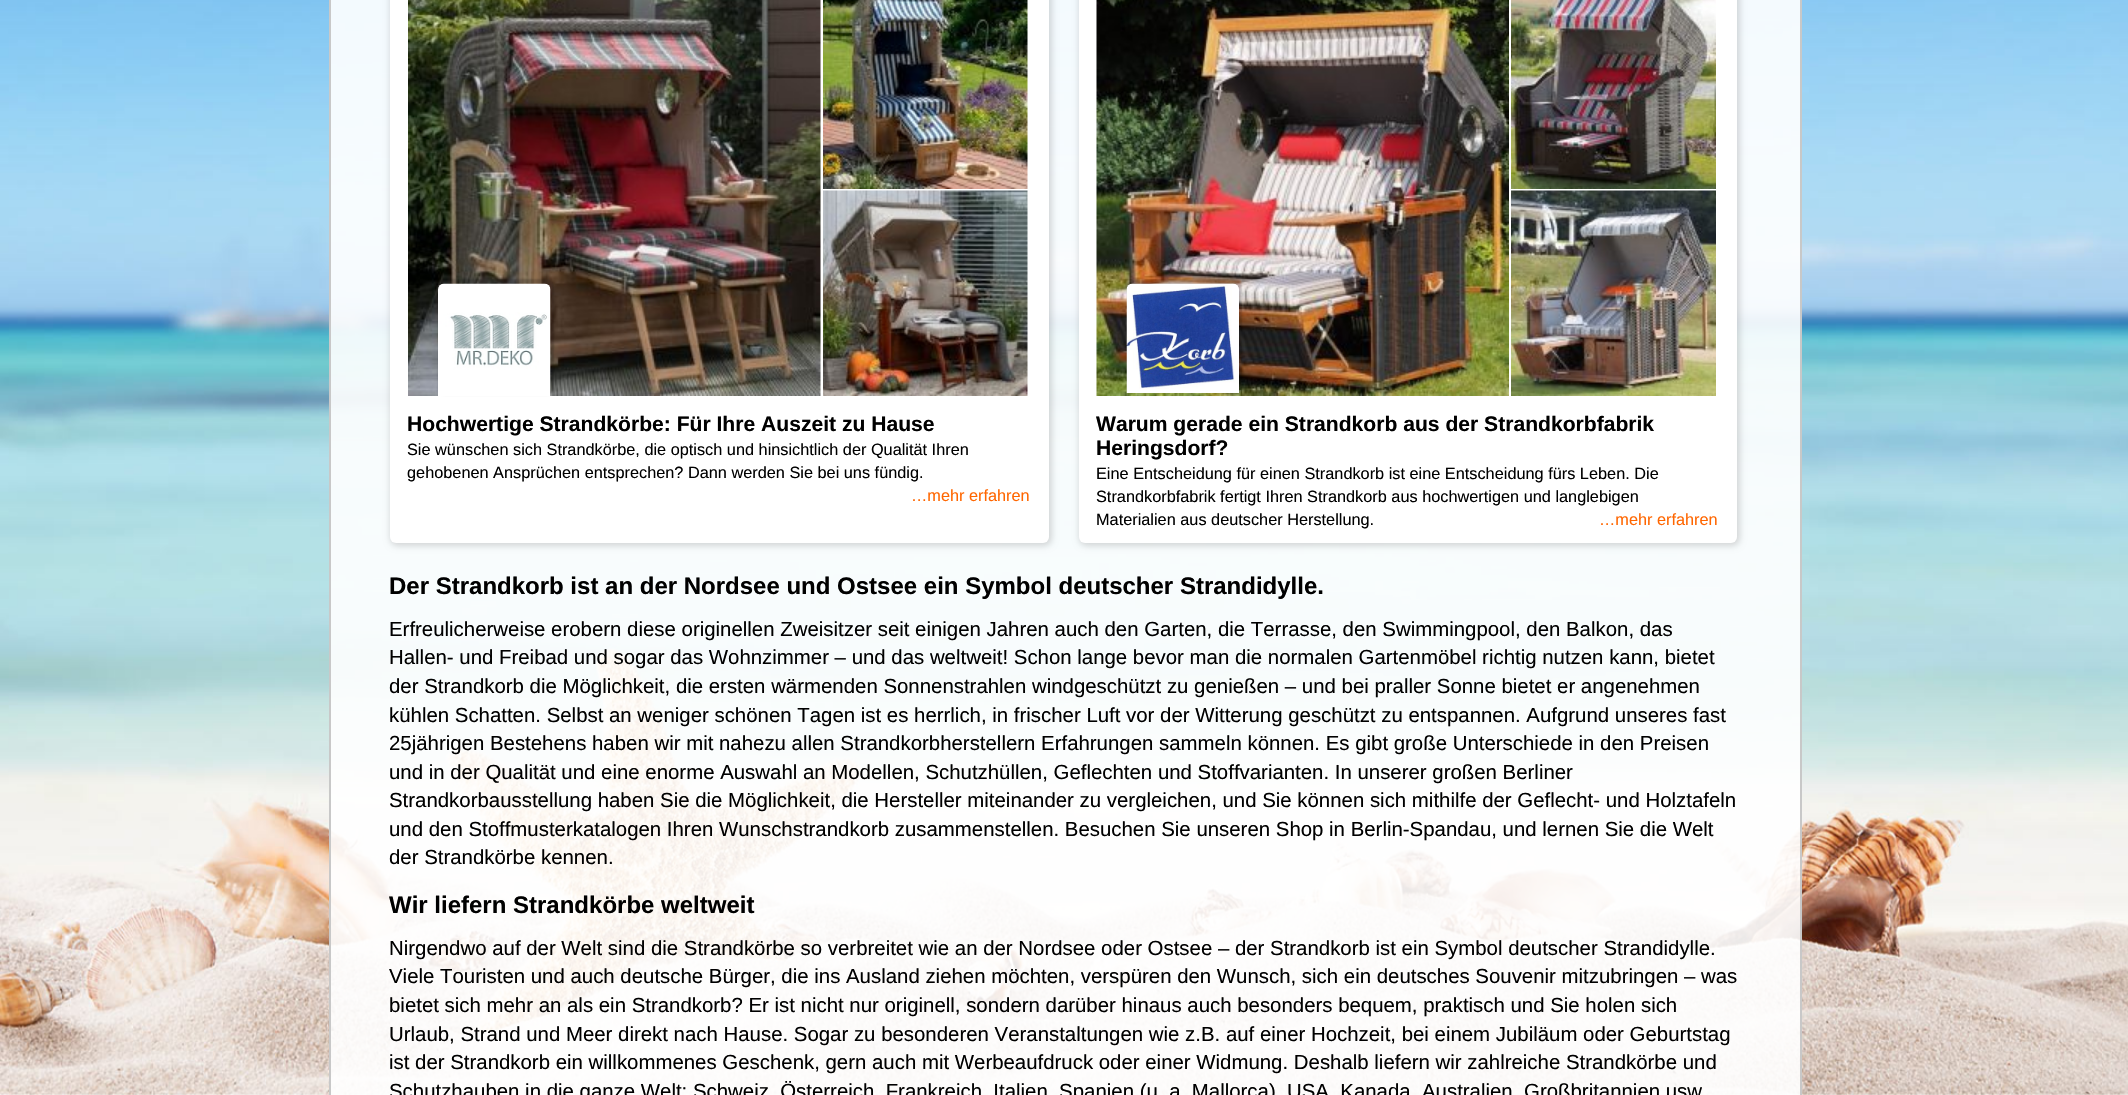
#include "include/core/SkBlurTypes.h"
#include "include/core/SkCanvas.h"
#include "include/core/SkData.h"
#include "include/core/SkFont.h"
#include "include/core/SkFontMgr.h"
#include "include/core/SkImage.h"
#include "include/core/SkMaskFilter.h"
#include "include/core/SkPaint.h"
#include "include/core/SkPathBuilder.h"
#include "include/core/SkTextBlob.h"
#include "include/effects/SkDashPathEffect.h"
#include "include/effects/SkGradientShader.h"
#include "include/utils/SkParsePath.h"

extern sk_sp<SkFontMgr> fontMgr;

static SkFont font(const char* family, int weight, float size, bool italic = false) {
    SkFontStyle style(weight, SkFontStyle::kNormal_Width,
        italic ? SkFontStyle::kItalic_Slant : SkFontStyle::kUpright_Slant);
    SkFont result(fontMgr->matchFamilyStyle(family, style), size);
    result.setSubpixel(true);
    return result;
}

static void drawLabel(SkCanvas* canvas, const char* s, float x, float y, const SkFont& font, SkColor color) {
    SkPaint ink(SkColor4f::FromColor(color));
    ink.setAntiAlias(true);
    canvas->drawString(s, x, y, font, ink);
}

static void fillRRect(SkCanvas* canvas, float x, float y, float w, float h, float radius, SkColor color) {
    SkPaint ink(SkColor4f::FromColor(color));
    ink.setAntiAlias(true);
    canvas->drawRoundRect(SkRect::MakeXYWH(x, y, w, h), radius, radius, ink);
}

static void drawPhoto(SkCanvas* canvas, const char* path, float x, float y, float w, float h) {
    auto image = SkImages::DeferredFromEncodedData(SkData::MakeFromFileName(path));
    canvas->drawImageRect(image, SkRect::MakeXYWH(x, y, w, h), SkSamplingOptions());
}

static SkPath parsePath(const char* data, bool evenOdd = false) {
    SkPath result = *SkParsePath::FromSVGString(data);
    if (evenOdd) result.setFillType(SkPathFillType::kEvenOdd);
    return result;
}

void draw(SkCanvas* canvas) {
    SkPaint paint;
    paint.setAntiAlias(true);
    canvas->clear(0xFFFFFFFF);
    drawPhoto(canvas, "assets/img1.png", 0, 0, 2128, 1095);
    paint.setColor(0xE6FFFFFF);
    canvas->drawRect(SkRect::MakeXYWH(330, -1, 1471, 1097), paint);
    paint.setStroke(true);
    paint.setStrokeWidth(2);
    paint.setColor(0xFFC8C8C8);
    canvas->drawRect(SkRect::MakeXYWH(330, -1, 1471, 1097), paint);
    paint.setStroke(false);
    paint.setColor(0x26000000);
    paint.setMaskFilter(SkMaskFilter::MakeBlur(kNormal_SkBlurStyle, 3));
    canvas->drawRoundRect(SkRect::MakeXYWH(390, -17, 662, 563), 8, 8, paint);
    paint.setMaskFilter(nullptr);
    fillRRect(canvas, 390, -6, 659, 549, 6, 0xFFFFFFFF);
    drawPhoto(canvas, "assets/img2.png", 408, 0, 413, 396);
    paint.setColor(0x33000000);
    paint.setMaskFilter(SkMaskFilter::MakeBlur(kNormal_SkBlurStyle, 1));
    canvas->drawRoundRect(SkRect::MakeXYWH(438, 279, 116, 116), 8, 8, paint);
    paint.setMaskFilter(nullptr);
    drawPhoto(canvas, "assets/img3.png", 438, 283, 113, 113);
    drawPhoto(canvas, "assets/img4.png", 823, 0, 205, 189);
    drawPhoto(canvas, "assets/img5.png", 823, 190, 205, 206);
    SkFont font1 = font("Liberation Sans", 700, 21.1f);
    drawLabel(canvas, "Hochwertige Strandkörbe: Für Ihre Auszeit zu Hause", 407, 431, font1, 0xFF000000);
    SkFont font2 = font("Liberation Sans", 400, 16.3f);
    drawLabel(canvas, "Sie wünschen sich Strandkörbe, die optisch und hinsichtlich der Qualität Ihren", 407, 455, font2, 0xFF000000);
    drawLabel(canvas, "gehobenen Ansprüchen entsprechen? Dann werden Sie bei uns fündig.", 407, 478, font2, 0xFF000000);
    drawLabel(canvas, "…mehr erfahren", 911, 501, font2, 0xFFFF6600);
    paint.setColor(0x26000000);
    paint.setMaskFilter(SkMaskFilter::MakeBlur(kNormal_SkBlurStyle, 3));
    canvas->drawRoundRect(SkRect::MakeXYWH(1079, -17, 661, 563), 8, 8, paint);
    paint.setMaskFilter(nullptr);
    fillRRect(canvas, 1079, -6, 658, 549, 6, 0xFFFFFFFF);
    drawPhoto(canvas, "assets/img6.png", 1096, 0, 413, 396);
    canvas->save();
    canvas->clipPath(parsePath("M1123 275H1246V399H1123ZM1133 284H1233C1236.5 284 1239 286.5 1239 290V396H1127V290C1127 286.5 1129.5 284 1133 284Z", true), true);
    paint.setColor(0x33000000);
    paint.setMaskFilter(SkMaskFilter::MakeBlur(kNormal_SkBlurStyle, 1));
    canvas->drawRoundRect(SkRect::MakeXYWH(1127, 279, 115, 116), 8, 8, paint);
    paint.setMaskFilter(nullptr);
    canvas->restore();
    drawPhoto(canvas, "assets/img7.png", 1126, 283, 113, 110);
    drawPhoto(canvas, "assets/img8.png", 1511, 0, 205, 189);
    drawPhoto(canvas, "assets/img9.png", 1511, 190, 205, 206);
    drawLabel(canvas, "Warum gerade ein Strandkorb aus der Strandkorbfabrik", 1096, 431, font1, 0xFF000000);
    drawLabel(canvas, "Heringsdorf?", 1096, 455, font1, 0xFF000000);
    drawLabel(canvas, "Eine Entscheidung für einen Strandkorb ist eine Entscheidung fürs Leben. Die", 1096, 479, font2, 0xFF000000);
    drawLabel(canvas, "Strandkorbfabrik fertigt Ihren Strandkorb aus hochwertigen und langlebigen", 1096, 502, font2, 0xFF000000);
    drawLabel(canvas, "Materialien aus deutscher Herstellung.", 1096, 525, font2, 0xFF000000);
    drawLabel(canvas, "…mehr erfahren", 1599, 525, font2, 0xFFFF6600);
    SkFont font3 = font("Liberation Sans", 700, 24);
    drawLabel(canvas, "Der Strandkorb ist an der Nordsee und Ostsee ein Symbol deutscher Strandidylle.", 389, 594, font3, 0xFF000000);
    SkFont font4 = font("Liberation Sans", 400, 20.4f);
    drawLabel(canvas, "Erfreulicherweise erobern diese originellen Zweisitzer seit einigen Jahren auch den Garten, die Terrasse, den Swimmingpool, den Balkon, das", 389, 636, font4, 0xFF000000);
    drawLabel(canvas, "Hallen- und Freibad und sogar das Wohnzimmer – und das weltweit! Schon lange bevor man die normalen Gartenmöbel richtig nutzen kann, bietet", 389, 664, font4, 0xFF000000);
    drawLabel(canvas, "der Strandkorb die Möglichkeit, die ersten wärmenden Sonnenstrahlen windgeschützt zu genießen – und bei praller Sonne bietet er angenehmen", 389, 693, font4, 0xFF000000);
    drawLabel(canvas, "kühlen Schatten. Selbst an weniger schönen Tagen ist es herrlich, in frischer Luft vor der Witterung geschützt zu entspannen. Aufgrund unseres fast", 389, 722, font4, 0xFF000000);
    drawLabel(canvas, "25jährigen Bestehens haben wir mit nahezu allen Strandkorbherstellern Erfahrungen sammeln können. Es gibt große Unterschiede in den Preisen", 389, 750, font4, 0xFF000000);
    drawLabel(canvas, "und in der Qualität und eine enorme Auswahl an Modellen, Schutzhüllen, Geflechten und Stoffvarianten. In unserer großen Berliner", 389, 779, font4, 0xFF000000);
    drawLabel(canvas, "Strandkorbausstellung haben Sie die Möglichkeit, die Hersteller miteinander zu vergleichen, und Sie können sich mithilfe der Geflecht- und Holztafeln", 389, 807, font4, 0xFF000000);
    drawLabel(canvas, "und den Stoffmusterkatalogen Ihren Wunschstrandkorb zusammenstellen. Besuchen Sie unseren Shop in Berlin-Spandau, und lernen Sie die Welt", 389, 836, font4, 0xFF000000);
    drawLabel(canvas, "der Strandkörbe kennen.", 389, 864, font4, 0xFF000000);
    drawLabel(canvas, "Wir liefern Strandkörbe weltweit", 389, 913, font3, 0xFF000000);
    drawLabel(canvas, "Nirgendwo auf der Welt sind die Strandkörbe so verbreitet wie an der Nordsee oder Ostsee – der Strandkorb ist ein Symbol deutscher Strandidylle.", 389, 955, font4, 0xFF000000);
    drawLabel(canvas, "Viele Touristen und auch deutsche Bürger, die ins Ausland ziehen möchten, verspüren den Wunsch, sich ein deutsches Souvenir mitzubringen – was", 389, 983, font4, 0xFF000000);
    drawLabel(canvas, "bietet sich mehr an als ein Strandkorb? Er ist nicht nur originell, sondern darüber hinaus auch besonders bequem, praktisch und Sie holen sich", 389, 1012, font4, 0xFF000000);
    drawLabel(canvas, "Urlaub, Strand und Meer direkt nach Hause. Sogar zu besonderen Veranstaltungen wie z.B. auf einer Hochzeit, bei einem Jubiläum oder Geburtstag", 389, 1041, font4, 0xFF000000);
    drawLabel(canvas, "ist der Strandkorb ein willkommenes Geschenk, gern auch mit Werbeaufdruck oder einer Widmung. Deshalb liefern wir zahlreiche Strandkörbe und", 389, 1069, font4, 0xFF000000);
    drawLabel(canvas, "Schutzhauben in die ganze Welt: Schweiz, Österreich, Frankreich, Italien, Spanien (u. a. Mallorca), USA, Kanada, Australien, Großbritannien usw", 389, 1098, font4, 0xFF000000);
}
